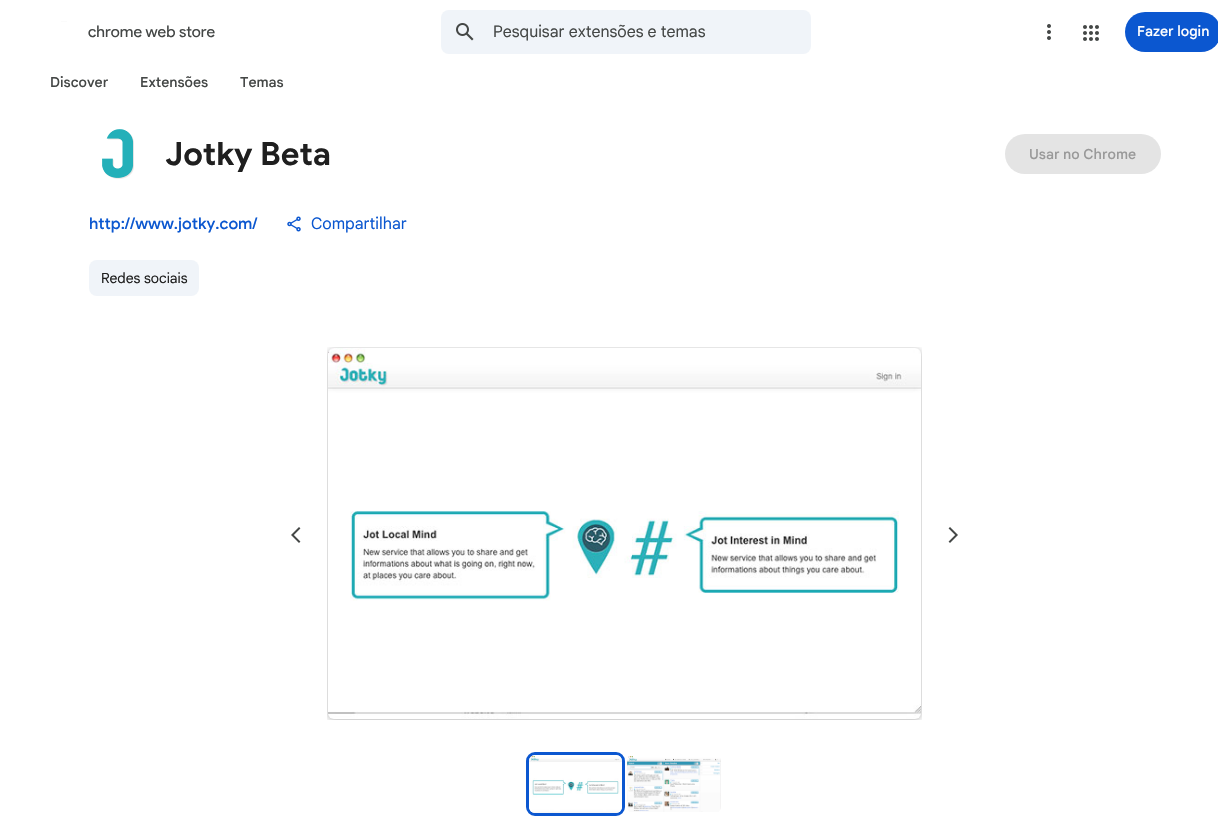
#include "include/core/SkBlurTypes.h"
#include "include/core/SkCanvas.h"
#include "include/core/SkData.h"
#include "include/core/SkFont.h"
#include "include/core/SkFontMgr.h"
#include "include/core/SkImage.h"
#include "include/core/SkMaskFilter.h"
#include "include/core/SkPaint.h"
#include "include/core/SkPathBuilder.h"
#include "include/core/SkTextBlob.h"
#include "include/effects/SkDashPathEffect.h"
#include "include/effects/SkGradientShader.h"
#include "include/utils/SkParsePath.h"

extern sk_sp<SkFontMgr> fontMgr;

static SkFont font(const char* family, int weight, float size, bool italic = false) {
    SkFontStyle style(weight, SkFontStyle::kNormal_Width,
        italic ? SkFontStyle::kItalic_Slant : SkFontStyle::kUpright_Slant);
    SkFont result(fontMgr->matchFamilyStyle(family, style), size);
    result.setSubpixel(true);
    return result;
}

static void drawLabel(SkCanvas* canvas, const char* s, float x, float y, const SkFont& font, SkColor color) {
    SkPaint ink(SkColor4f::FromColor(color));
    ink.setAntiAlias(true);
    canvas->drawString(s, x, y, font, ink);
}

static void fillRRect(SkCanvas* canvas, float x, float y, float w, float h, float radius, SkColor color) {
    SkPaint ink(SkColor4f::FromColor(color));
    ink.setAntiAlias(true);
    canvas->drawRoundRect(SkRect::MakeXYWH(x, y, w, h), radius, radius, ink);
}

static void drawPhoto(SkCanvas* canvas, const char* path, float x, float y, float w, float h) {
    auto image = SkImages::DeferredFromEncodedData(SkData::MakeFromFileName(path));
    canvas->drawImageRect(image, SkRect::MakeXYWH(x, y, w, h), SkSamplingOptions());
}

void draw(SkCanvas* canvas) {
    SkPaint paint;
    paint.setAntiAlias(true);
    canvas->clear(0xFFFFFFFF);
    drawPhoto(canvas, "assets/img1.png", 61, 21, 6, 1);
    SkFont font1 = font("Product Sans", 400, 16);
    drawLabel(canvas, "chrome web store", 88, 37, font1, 0xFF444746);
    fillRRect(canvas, 441, 10, 370, 44, 8, 0xFFF0F4F9);
    drawPhoto(canvas, "assets/img2.png", 456, 23, 18, 18);
    SkFont font2 = font("Google Sans", 400, 16);
    drawLabel(canvas, "Pesquisar extensões e temas", 493, 37, font2, 0xFF444746);
    drawPhoto(canvas, "assets/img3.png", 1047, 24, 4, 16);
    drawPhoto(canvas, "assets/img4.png", 1083, 25, 16, 16);
    fillRRect(canvas, 1125, 12, 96, 40, 20, 0xFF0B57D0);
    SkFont font3 = font("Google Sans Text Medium", 500, 14);
    drawLabel(canvas, "Fazer login", 1137, 36, font3, 0xFFFFFFFF);
    drawLabel(canvas, "Discover", 50, 87, font3, 0xFF444746);
    drawLabel(canvas, "Extensões", 140, 87, font3, 0xFF444746);
    drawLabel(canvas, "Temas", 240, 87, font3, 0xFF444746);
    drawPhoto(canvas, "assets/img5.png", 102, 129, 32, 50);
    SkFont font4 = font("Google Sans", 700, 32);
    drawLabel(canvas, "Jotky Beta", 165, 165, font4, 0xFF1F1F1F);
    fillRRect(canvas, 1005, 134, 156, 40, 20, 0xFFE4E4E4);
    drawLabel(canvas, "Usar no Chrome", 1029, 159, font3, 0xFF999999);
    SkFont font5 = font("Google Sans", 500, 16);
    drawLabel(canvas, "http://www.jotky.com/", 89, 229, font5, 0xFF0B57D0);
    drawPhoto(canvas, "assets/img6.png", 287, 216, 14, 16);
    SkFont font6 = font("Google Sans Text", 400, 16);
    drawLabel(canvas, "Compartilhar", 311, 229, font6, 0xFF0B57D0);
    fillRRect(canvas, 89, 260, 110, 36, 8, 0xFFF0F4F9);
    SkFont font7 = font("Google Sans", 400, 14);
    drawLabel(canvas, "Redes sociais", 101, 283, font7, 0xFF1F1F1F);
    drawPhoto(canvas, "assets/img7.png", 291, 527, 10, 16);
    drawPhoto(canvas, "assets/img8.png", 327, 347, 595, 373);
    drawPhoto(canvas, "assets/img9.png", 948, 527, 10, 16);
    paint.setStroke(true);
    paint.setStrokeWidth(3);
    paint.setColor(0xFF0B57D0);
    canvas->drawRoundRect(SkRect::MakeXYWH(527.5f, 753.5f, 96, 61), 7.5f, 7.5f, paint);
    drawPhoto(canvas, "assets/img10.png", 529, 755, 93, 58);
    drawPhoto(canvas, "assets/img11.png", 627, 756, 94, 56);
}
